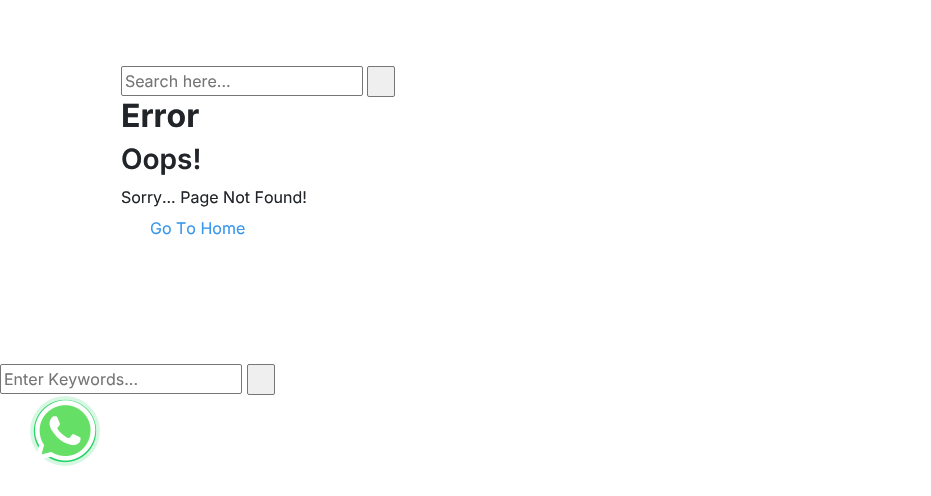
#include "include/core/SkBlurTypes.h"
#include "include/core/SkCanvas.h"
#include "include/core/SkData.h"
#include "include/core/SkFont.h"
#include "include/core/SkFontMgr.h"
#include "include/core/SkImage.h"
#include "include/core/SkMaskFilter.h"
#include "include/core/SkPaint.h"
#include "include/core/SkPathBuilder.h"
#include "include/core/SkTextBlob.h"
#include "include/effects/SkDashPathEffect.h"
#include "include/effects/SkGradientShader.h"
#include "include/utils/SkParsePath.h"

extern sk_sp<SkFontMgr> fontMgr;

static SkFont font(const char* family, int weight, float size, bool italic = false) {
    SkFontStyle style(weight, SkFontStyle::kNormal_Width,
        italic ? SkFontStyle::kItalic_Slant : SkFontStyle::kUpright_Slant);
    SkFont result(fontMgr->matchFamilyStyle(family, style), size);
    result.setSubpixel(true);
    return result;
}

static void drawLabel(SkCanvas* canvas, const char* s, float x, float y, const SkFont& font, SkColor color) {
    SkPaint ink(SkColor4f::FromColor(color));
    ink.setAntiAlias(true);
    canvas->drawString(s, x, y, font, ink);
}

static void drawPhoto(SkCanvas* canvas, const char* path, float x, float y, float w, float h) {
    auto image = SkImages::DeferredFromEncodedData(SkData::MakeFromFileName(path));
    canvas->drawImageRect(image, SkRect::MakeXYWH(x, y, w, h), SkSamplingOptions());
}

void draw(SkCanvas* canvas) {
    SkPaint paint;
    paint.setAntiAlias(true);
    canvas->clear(0xFFFFFFFF);
    paint.setStroke(true);
    paint.setStrokeWidth(1);
    paint.setColor(0xFF767676);
    canvas->drawRoundRect(SkRect::MakeXYWH(121.5f, 66.5f, 241, 29), 1.5f, 1.5f, paint);
    SkFont font1 = font("Inter", 400, 16);
    drawLabel(canvas, "Search here...", 125, 87, font1, 0xFF757575);
    paint.setStroke(false);
    paint.setColor(0xFFEFEFEF);
    canvas->drawRoundRect(SkRect::MakeXYWH(367.5f, 66.5f, 27, 30), 1.5f, 1.5f, paint);
    paint.setStroke(true);
    paint.setColor(0xFF767676);
    canvas->drawRoundRect(SkRect::MakeXYWH(367.5f, 66.5f, 27, 30), 1.5f, 1.5f, paint);
    SkFont font2 = font("Inter", 700, 32);
    drawLabel(canvas, "Error", 121, 127, font2, 0xFF212529);
    SkFont font3 = font("Inter", 600, 28);
    drawLabel(canvas, "Oops!", 121, 169, font3, 0xFF212529);
    drawLabel(canvas, "Sorry... Page Not Found!", 121, 203, font1, 0xFF212529);
    drawLabel(canvas, "Go To Home", 150, 234, font1, 0xFF3697EF);
    canvas->drawRoundRect(SkRect::MakeXYWH(0.5f, 364.5f, 241, 29), 1.5f, 1.5f, paint);
    drawLabel(canvas, "Enter Keywords...", 4, 385, font1, 0xFF757575);
    paint.setStroke(false);
    paint.setColor(0xFFEFEFEF);
    canvas->drawRoundRect(SkRect::MakeXYWH(247.5f, 364.5f, 27, 30), 1.5f, 1.5f, paint);
    paint.setStroke(true);
    paint.setColor(0xFF767676);
    canvas->drawRoundRect(SkRect::MakeXYWH(247.5f, 364.5f, 27, 30), 1.5f, 1.5f, paint);
    drawPhoto(canvas, "assets/img1.png", 30, 396, 70, 70);
}
